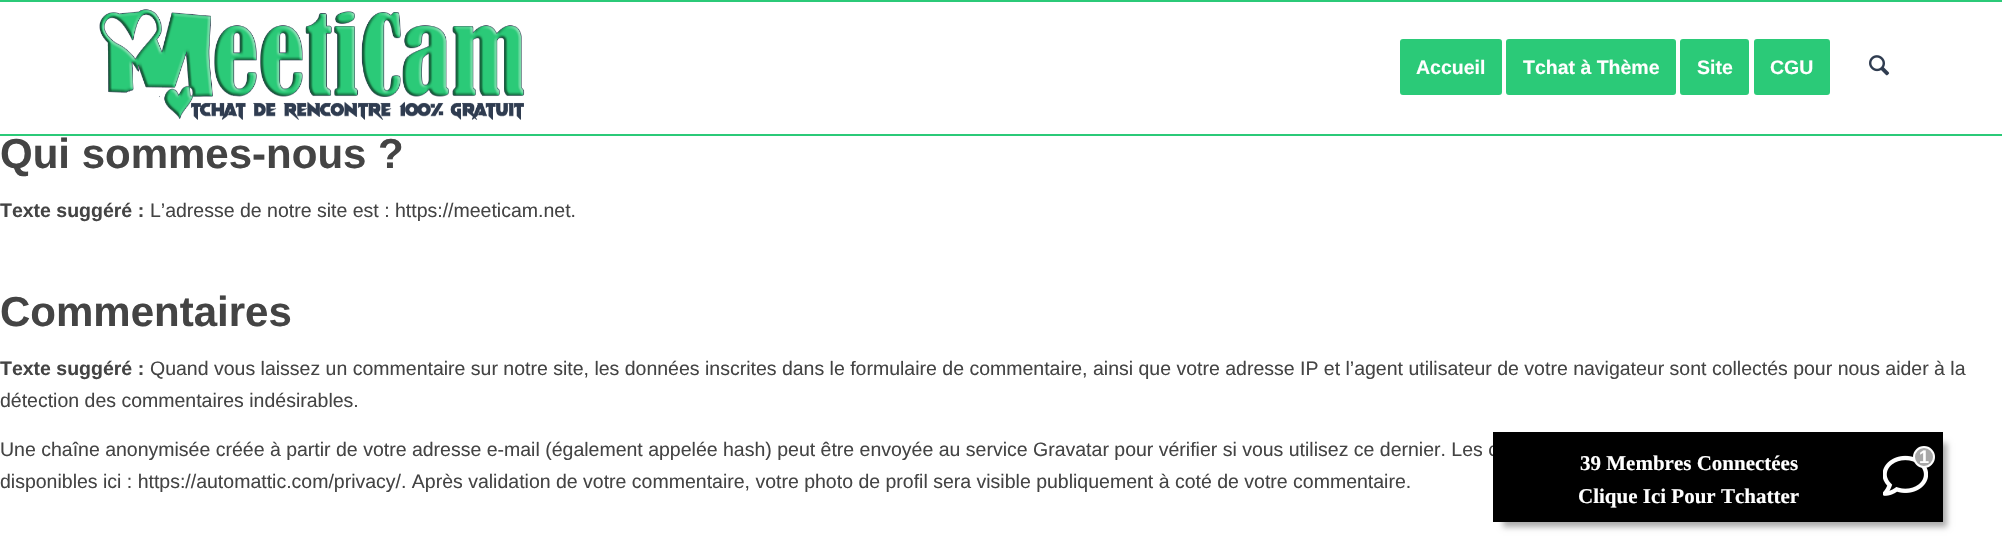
#include "include/core/SkBlurTypes.h"
#include "include/core/SkCanvas.h"
#include "include/core/SkData.h"
#include "include/core/SkFont.h"
#include "include/core/SkFontMgr.h"
#include "include/core/SkImage.h"
#include "include/core/SkMaskFilter.h"
#include "include/core/SkPaint.h"
#include "include/core/SkPathBuilder.h"
#include "include/core/SkTextBlob.h"
#include "include/effects/SkDashPathEffect.h"
#include "include/effects/SkGradientShader.h"
#include "include/utils/SkParsePath.h"

extern sk_sp<SkFontMgr> fontMgr;

static SkFont font(const char* family, int weight, float size, bool italic = false) {
    SkFontStyle style(weight, SkFontStyle::kNormal_Width,
        italic ? SkFontStyle::kItalic_Slant : SkFontStyle::kUpright_Slant);
    SkFont result(fontMgr->matchFamilyStyle(family, style), size);
    result.setSubpixel(true);
    return result;
}

static void drawLabel(SkCanvas* canvas, const char* s, float x, float y, const SkFont& font, SkColor color) {
    SkPaint ink(SkColor4f::FromColor(color));
    ink.setAntiAlias(true);
    canvas->drawString(s, x, y, font, ink);
}

static void fillRect(SkCanvas* canvas, float x, float y, float w, float h, SkColor color) {
    SkPaint ink(SkColor4f::FromColor(color));
    ink.setAntiAlias(true);
    canvas->drawRect(SkRect::MakeXYWH(x, y, w, h), ink);
}

static void drawPhoto(SkCanvas* canvas, const char* path, float x, float y, float w, float h) {
    auto image = SkImages::DeferredFromEncodedData(SkData::MakeFromFileName(path));
    canvas->drawImageRect(image, SkRect::MakeXYWH(x, y, w, h), SkSamplingOptions());
}

void draw(SkCanvas* canvas) {
    SkPaint paint;
    paint.setAntiAlias(true);
    canvas->clear(0xFFFFFFFF);
    fillRect(canvas, 0, 0, 2002, 2, 0xFF2BCA78);
    fillRect(canvas, 0, 134, 2002, 2, 0xFF2BCA78);
    drawPhoto(canvas, "assets/img1.png", 99, 9, 426, 111);
    paint.setColor(0xFF2BCA78);
    canvas->drawRoundRect(SkRect::MakeXYWH(1401.5f, 40.5f, 99, 53), 1.5f, 1.5f, paint);
    paint.setStroke(true);
    paint.setStrokeWidth(3);
    canvas->drawRoundRect(SkRect::MakeXYWH(1401.5f, 40.5f, 99, 53), 1.5f, 1.5f, paint);
    SkFont font1 = font("Liberation Sans", 700, 19.5f);
    drawLabel(canvas, "Accueil", 1416, 74, font1, 0xFFFFFFFF);
    paint.setStroke(false);
    canvas->drawRoundRect(SkRect::MakeXYWH(1507.5f, 40.5f, 167, 53), 1.5f, 1.5f, paint);
    paint.setStroke(true);
    canvas->drawRoundRect(SkRect::MakeXYWH(1507.5f, 40.5f, 167, 53), 1.5f, 1.5f, paint);
    drawLabel(canvas, "Tchat à Thème", 1523, 74, font1, 0xFFFFFFFF);
    paint.setStroke(false);
    canvas->drawRoundRect(SkRect::MakeXYWH(1681.5f, 40.5f, 66, 53), 1.5f, 1.5f, paint);
    paint.setStroke(true);
    canvas->drawRoundRect(SkRect::MakeXYWH(1681.5f, 40.5f, 66, 53), 1.5f, 1.5f, paint);
    drawLabel(canvas, "Site", 1697, 74, font1, 0xFFFFFFFF);
    paint.setStroke(false);
    canvas->drawRoundRect(SkRect::MakeXYWH(1755.5f, 40.5f, 73, 53), 1.5f, 1.5f, paint);
    paint.setStroke(true);
    canvas->drawRoundRect(SkRect::MakeXYWH(1755.5f, 40.5f, 73, 53), 1.5f, 1.5f, paint);
    drawLabel(canvas, "CGU", 1770, 74, font1, 0xFFFFFFFF);
    drawPhoto(canvas, "assets/img2.png", 1869, 55, 21, 21);
    SkFont font2 = font("Liberation Sans", 700, 42);
    drawLabel(canvas, "Qui sommes-nous ?", 0, 168, font2, 0xFF444444);
    drawLabel(canvas, "Texte suggéré :", 0, 217, font1, 0xFF444444);
    SkFont font3 = font("Liberation Sans", 400, 19.5f);
    drawLabel(canvas, "L’adresse de notre site est : https://meeticam.net.", 150, 217, font3, 0xFF444444);
    drawLabel(canvas, "Commentaires", 0, 326, font2, 0xFF444444);
    drawLabel(canvas, "Texte suggéré :", 0, 375, font1, 0xFF444444);
    drawLabel(canvas, "Quand vous laissez un commentaire sur notre site, les données inscrites dans le formulaire de commentaire, ainsi que votre adresse IP et l’agent utilisateur de votre navigateur sont collectés pour nous aider à la", 150, 375, font3, 0xFF444444);
    drawLabel(canvas, "détection des commentaires indésirables.", 0, 407, font3, 0xFF444444);
    drawLabel(canvas, "Une chaîne anonymisée créée à partir de votre adresse e-mail (également appelée hash) peut être envoyée au service Gravatar pour vérifier si vous utilisez ce dernier. Les c", 0, 456, font3, 0xFF444444);
    drawLabel(canvas, "disponibles ici : https://automattic.com/privacy/. Après validation de votre commentaire, votre photo de profil sera visible publiquement à coté de votre commentaire.", 0, 488, font3, 0xFF444444);
    paint.setStroke(false);
    paint.setColor(0x54000000);
    paint.setMaskFilter(SkMaskFilter::MakeBlur(kNormal_SkBlurStyle, 3));
    canvas->drawRect(SkRect::MakeXYWH(1503, 443, 444, 84), paint);
    paint.setMaskFilter(nullptr);
    fillRect(canvas, 1493, 432, 450, 90, 0xFF000000);
    SkFont font4 = font("Liberation Serif", 700, 21);
    drawLabel(canvas, "39 Membres Connectées", 1580, 470, font4, 0xFFFFFFFF);
    drawLabel(canvas, "Clique Ici Pour Tchatter", 1578, 503, font4, 0xFFFFFFFF);
    drawPhoto(canvas, "assets/img3.png", 1883, 455, 45, 41);
    paint.setColor(0xFFA8A8A8);
    canvas->drawCircle(1924, 457, 10, paint);
    paint.setStroke(true);
    paint.setStrokeWidth(2);
    paint.setColor(0xFFFFFFFF);
    canvas->drawCircle(1924, 457, 10, paint);
    SkFont font5 = font("Liberation Sans", 700, 18);
    drawLabel(canvas, "1", 1919, 463, font5, 0xFFFFFFFF);
}
